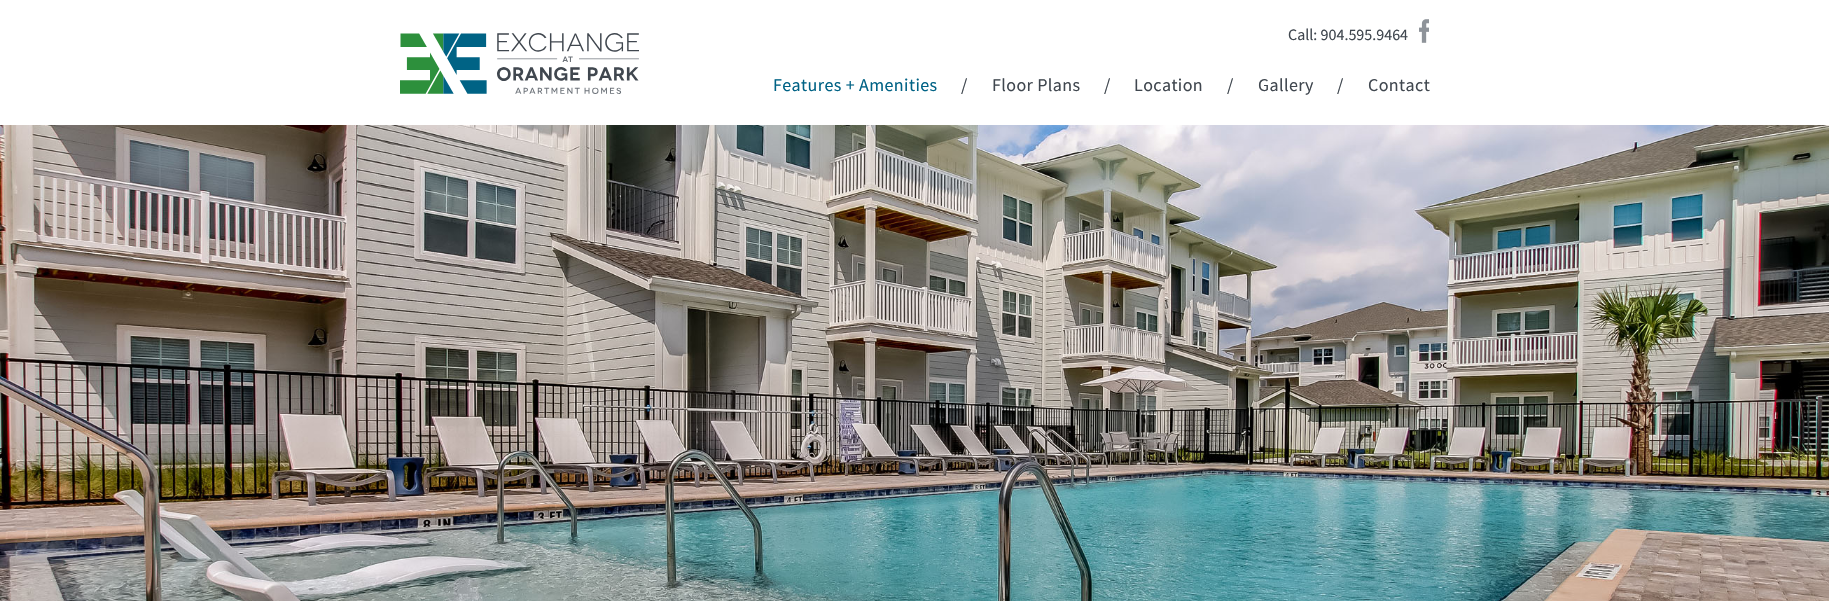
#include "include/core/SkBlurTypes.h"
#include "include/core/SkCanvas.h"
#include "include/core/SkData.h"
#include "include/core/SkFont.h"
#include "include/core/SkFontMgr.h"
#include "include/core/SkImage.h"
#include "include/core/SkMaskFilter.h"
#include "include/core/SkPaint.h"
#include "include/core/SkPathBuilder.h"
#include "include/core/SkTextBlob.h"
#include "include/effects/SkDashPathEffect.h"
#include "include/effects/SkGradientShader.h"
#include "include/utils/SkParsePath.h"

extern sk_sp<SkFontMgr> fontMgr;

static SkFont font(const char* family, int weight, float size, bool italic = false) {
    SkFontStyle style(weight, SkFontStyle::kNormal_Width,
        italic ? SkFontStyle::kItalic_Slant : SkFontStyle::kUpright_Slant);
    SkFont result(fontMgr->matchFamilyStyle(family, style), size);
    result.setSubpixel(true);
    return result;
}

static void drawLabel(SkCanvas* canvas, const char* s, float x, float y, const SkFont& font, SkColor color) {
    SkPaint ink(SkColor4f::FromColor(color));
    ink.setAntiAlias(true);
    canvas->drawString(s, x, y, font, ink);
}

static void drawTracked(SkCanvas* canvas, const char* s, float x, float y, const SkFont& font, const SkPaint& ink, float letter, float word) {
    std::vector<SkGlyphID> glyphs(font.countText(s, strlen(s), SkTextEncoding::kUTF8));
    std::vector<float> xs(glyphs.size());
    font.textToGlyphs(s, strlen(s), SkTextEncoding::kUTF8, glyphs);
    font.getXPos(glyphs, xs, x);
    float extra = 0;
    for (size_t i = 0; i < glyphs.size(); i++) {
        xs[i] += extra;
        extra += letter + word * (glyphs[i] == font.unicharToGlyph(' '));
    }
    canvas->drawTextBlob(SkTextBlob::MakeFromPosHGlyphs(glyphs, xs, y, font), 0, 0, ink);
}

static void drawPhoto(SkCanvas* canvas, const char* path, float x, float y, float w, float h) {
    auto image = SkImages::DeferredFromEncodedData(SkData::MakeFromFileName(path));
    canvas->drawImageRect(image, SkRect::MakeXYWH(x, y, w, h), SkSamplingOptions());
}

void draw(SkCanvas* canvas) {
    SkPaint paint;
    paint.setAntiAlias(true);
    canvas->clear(0xFFFFFFFF);
    drawPhoto(canvas, "assets/img1.png", 400, 33, 239, 61);
    SkFont font1 = font("Source Sans Pro", 400, 16);
    drawLabel(canvas, "Call: 904.595.9464", 1288, 40, font1, 0xFF40474F);
    drawPhoto(canvas, "assets/img2.png", 1419, 19, 10, 24);
    SkFont font2 = font("Source Sans Pro", 400, 18);
    paint.setColor(0xFF006285);
    drawTracked(canvas, "Features + Amenities", 773, 91, font2, paint, 0.4f, 0);
    paint.setColor(0xFF40474F);
    drawTracked(canvas, "/", 961, 91, font2, paint, 0.4f, 0);
    drawTracked(canvas, "Floor Plans", 992, 91, font2, paint, 0.4f, 0);
    drawTracked(canvas, "/", 1104, 91, font2, paint, 0.4f, 0);
    drawTracked(canvas, "Location", 1134, 91, font2, paint, 0.4f, 0);
    drawTracked(canvas, "/", 1227, 91, font2, paint, 0.4f, 0);
    drawTracked(canvas, "Gallery", 1258, 91, font2, paint, 0.4f, 0);
    drawTracked(canvas, "/", 1337, 91, font2, paint, 0.4f, 0);
    drawTracked(canvas, "Contact", 1368, 91, font2, paint, 0.4f, 0);
    drawPhoto(canvas, "assets/img3.png", 0, 125, 1829, 476);
}
